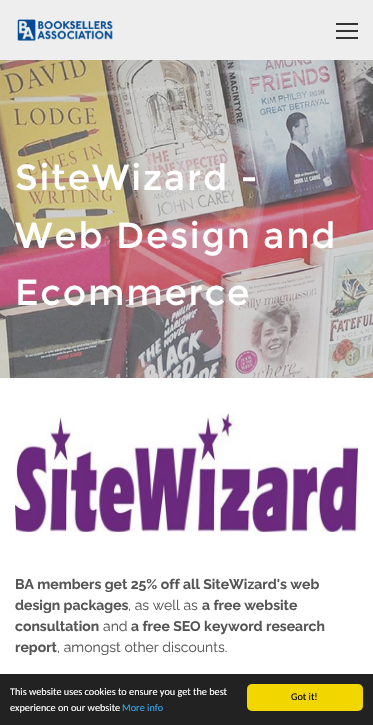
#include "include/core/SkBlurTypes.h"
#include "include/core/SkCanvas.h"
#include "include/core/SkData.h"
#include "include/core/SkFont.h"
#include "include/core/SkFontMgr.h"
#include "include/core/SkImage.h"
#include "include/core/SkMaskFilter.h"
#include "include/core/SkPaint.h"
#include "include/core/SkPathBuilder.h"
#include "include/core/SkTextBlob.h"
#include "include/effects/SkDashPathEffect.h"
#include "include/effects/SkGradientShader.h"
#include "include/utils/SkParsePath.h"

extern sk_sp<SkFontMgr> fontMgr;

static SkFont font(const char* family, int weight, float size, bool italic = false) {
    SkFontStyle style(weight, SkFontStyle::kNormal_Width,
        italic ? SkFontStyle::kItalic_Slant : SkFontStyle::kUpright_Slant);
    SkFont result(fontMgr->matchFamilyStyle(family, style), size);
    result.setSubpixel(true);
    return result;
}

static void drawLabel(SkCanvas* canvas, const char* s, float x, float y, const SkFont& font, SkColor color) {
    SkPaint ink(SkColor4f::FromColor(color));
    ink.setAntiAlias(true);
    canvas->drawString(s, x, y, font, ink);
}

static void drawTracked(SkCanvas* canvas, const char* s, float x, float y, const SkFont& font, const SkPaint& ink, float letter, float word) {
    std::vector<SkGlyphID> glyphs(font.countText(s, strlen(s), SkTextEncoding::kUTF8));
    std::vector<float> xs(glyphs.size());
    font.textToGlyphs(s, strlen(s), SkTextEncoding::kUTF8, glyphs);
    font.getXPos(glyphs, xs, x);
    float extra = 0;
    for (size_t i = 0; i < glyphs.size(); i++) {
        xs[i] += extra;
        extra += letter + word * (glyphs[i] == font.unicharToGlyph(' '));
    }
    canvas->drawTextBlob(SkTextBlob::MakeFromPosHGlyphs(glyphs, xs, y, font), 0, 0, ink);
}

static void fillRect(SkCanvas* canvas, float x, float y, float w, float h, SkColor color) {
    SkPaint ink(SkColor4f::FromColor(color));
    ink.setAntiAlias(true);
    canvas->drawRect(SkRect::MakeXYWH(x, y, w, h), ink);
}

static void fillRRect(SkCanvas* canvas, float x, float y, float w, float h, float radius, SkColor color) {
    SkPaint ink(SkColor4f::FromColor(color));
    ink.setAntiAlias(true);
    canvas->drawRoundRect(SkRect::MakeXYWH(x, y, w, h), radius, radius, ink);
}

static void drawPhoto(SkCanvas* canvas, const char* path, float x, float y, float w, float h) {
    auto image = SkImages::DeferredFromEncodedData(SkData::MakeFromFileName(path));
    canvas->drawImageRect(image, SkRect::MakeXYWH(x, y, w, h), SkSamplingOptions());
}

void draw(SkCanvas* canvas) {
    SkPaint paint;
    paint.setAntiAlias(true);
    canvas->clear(0xFFFFFFFF);
    fillRect(canvas, 0, 60, 373, 318, 0xFFD4D4D4);
    fillRect(canvas, 0, 0, 373, 60, 0xFFEEEEEE);
    drawPhoto(canvas, "assets/img1.png", 17, 19, 96, 22);
    fillRect(canvas, 336, 23, 22, 2, 0xFF333333);
    fillRect(canvas, 336, 30, 22, 2, 0xFF333333);
    fillRect(canvas, 336, 37, 22, 2, 0xFF333333);
    drawPhoto(canvas, "assets/img2.png", 0, 60, 373, 318);
    SkFont font1 = font("Montserrat", 400, 36);
    paint.setColor(0xFFFFFFFF);
    drawTracked(canvas, "SiteWizard -", 15, 190, font1, paint, 1.75f, 0);
    drawTracked(canvas, "Web Design and", 15, 248, font1, paint, 1.75f, 0);
    drawTracked(canvas, "Ecommerce", 15, 305, font1, paint, 1.75f, 0);
    drawPhoto(canvas, "assets/img3.png", 15, 413, 343, 119);
    SkFont font2 = font("Raleway", 700, 14);
    drawLabel(canvas, "BA members get 25% off all SiteWizard's web", 15, 589, font2, 0xFF555555);
    drawLabel(canvas, "design packages", 15, 610, font2, 0xFF555555);
    SkFont font3 = font("Raleway", 400, 14);
    drawLabel(canvas, ", as well as", 128, 610, font3, 0xFF555555);
    drawLabel(canvas, "a free website", 202, 610, font2, 0xFF555555);
    drawLabel(canvas, "consultation", 15, 631, font2, 0xFF555555);
    drawLabel(canvas, "and", 103, 631, font3, 0xFF555555);
    drawLabel(canvas, "a free SEO keyword research", 131, 631, font2, 0xFF555555);
    drawLabel(canvas, "report", 15, 652, font2, 0xFF555555);
    drawLabel(canvas, ", amongst other discounts.", 57, 652, font3, 0xFF555555);
    fillRect(canvas, 0, 674, 373, 51, 0xFF222222);
    SkFont font4 = font("Carlito", 400, 10.2f);
    drawLabel(canvas, "This website uses cookies to ensure you get the best", 10, 695, font4, 0xFFFFFFFF);
    drawLabel(canvas, "experience on our website", 10, 711, font4, 0xFFFFFFFF);
    drawLabel(canvas, "More info", 122, 711, font4, 0xFF31A8F0);
    fillRRect(canvas, 247, 684, 116, 27, 5, 0xFFF1D600);
    drawLabel(canvas, "Got it!", 291, 700, font4, 0xFF000000);
}
